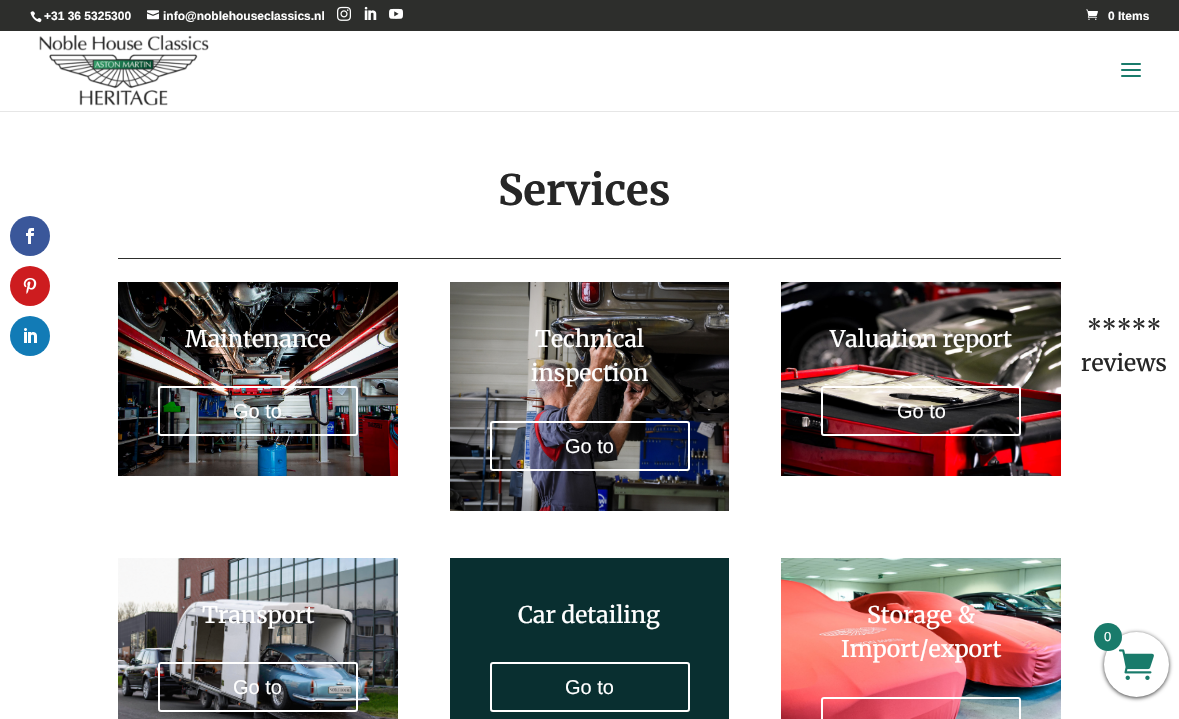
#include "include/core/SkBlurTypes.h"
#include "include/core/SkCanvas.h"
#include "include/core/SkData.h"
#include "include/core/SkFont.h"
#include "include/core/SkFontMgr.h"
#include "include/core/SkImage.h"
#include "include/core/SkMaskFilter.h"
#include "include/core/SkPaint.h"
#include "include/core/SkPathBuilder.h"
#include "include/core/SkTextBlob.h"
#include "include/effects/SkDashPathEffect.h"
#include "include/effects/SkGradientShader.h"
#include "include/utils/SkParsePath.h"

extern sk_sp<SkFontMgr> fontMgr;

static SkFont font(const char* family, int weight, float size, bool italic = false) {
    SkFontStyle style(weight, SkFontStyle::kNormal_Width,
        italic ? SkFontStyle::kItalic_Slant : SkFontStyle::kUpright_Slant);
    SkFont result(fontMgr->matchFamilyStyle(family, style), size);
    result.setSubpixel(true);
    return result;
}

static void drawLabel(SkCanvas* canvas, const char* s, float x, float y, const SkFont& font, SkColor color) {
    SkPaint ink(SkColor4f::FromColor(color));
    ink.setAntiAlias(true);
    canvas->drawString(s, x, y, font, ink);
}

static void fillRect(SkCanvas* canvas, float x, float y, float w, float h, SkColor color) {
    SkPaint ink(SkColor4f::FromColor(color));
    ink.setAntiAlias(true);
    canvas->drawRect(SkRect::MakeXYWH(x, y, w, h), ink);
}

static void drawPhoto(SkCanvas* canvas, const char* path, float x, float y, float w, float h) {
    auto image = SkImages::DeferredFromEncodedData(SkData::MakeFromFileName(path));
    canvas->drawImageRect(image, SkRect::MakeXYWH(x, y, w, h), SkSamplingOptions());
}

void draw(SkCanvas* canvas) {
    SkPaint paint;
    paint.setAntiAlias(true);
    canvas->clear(0xFFFFFFFF);
    paint.setColor(0xFF3A579A);
    canvas->drawCircle(30, 236, 20, paint);
    drawPhoto(canvas, "assets/img1.png", 26, 228, 8, 16);
    paint.setColor(0xFFCD1C1F);
    canvas->drawCircle(30, 286, 20, paint);
    drawPhoto(canvas, "assets/img2.png", 23, 278, 14, 16);
    paint.setColor(0xFF127BB6);
    canvas->drawCircle(30, 336, 20, paint);
    drawPhoto(canvas, "assets/img3.png", 24, 328, 13, 15);
    fillRect(canvas, 0, 0, 1179, 31, 0xFF2D2E2C);
    drawPhoto(canvas, "assets/img4.png", 30, 11, 12, 12);
    SkFont font1 = font("Liberation Sans", 700, 12);
    drawLabel(canvas, "+31 36 5325300", 44, 20, font1, 0xFFFFFFFF);
    drawPhoto(canvas, "assets/img5.png", 147, 10, 12, 10);
    drawLabel(canvas, "info@noblehouseclassics.nl", 163, 20, font1, 0xFFFFFFFF);
    drawPhoto(canvas, "assets/img6.png", 337, 6, 14, 15);
    drawPhoto(canvas, "assets/img7.png", 364, 6, 13, 14);
    drawPhoto(canvas, "assets/img8.png", 389, 8, 14, 11);
    drawPhoto(canvas, "assets/img9.png", 1086, 9, 12, 11);
    drawLabel(canvas, "0 Items", 1108, 20, font1, 0xFFFFFFFF);
    fillRect(canvas, 0, 111, 1179, 1, 0xFFE6E6E6);
    drawPhoto(canvas, "assets/img10.png", 39, 35, 170, 71);
    drawPhoto(canvas, "assets/img11.png", 1121, 63, 20, 14);
    SkFont font2 = font("Merriweather", 700, 42);
    drawLabel(canvas, "Services", 498, 205, font2, 0xFF262626);
    fillRect(canvas, 118, 258, 943, 1, 0xFF2D2E2C);
    drawPhoto(canvas, "assets/img12.png", 118, 282, 280, 194);
    SkFont font3 = font("Merriweather", 500, 23);
    drawLabel(canvas, "Maintenance", 185, 347, font3, 0xFFFFFFFF);
    paint.setStroke(true);
    paint.setStrokeWidth(2);
    paint.setColor(0xFFFFFFFF);
    canvas->drawRoundRect(SkRect::MakeXYWH(159, 387, 198, 48), 2, 2, paint);
    SkFont font4 = font("Liberation Sans", 400, 20);
    drawLabel(canvas, "Go to", 233, 418, font4, 0xFFFFFFFF);
    drawPhoto(canvas, "assets/img13.png", 450, 282, 279, 229);
    drawLabel(canvas, "Technical", 535, 347, font3, 0xFFFFFFFF);
    drawLabel(canvas, "inspection", 531, 381, font3, 0xFFFFFFFF);
    canvas->drawRoundRect(SkRect::MakeXYWH(491, 422, 198, 48), 2, 2, paint);
    drawLabel(canvas, "Go to", 565, 453, font4, 0xFFFFFFFF);
    drawPhoto(canvas, "assets/img14.png", 781, 282, 280, 194);
    drawLabel(canvas, "Valuation report", 830, 347, font3, 0xFFFFFFFF);
    canvas->drawRoundRect(SkRect::MakeXYWH(822, 387, 198, 48), 2, 2, paint);
    drawLabel(canvas, "Go to", 897, 418, font4, 0xFFFFFFFF);
    drawPhoto(canvas, "assets/img15.png", 118, 558, 280, 161);
    drawLabel(canvas, "Transport", 202, 623, font3, 0xFFFFFFFF);
    canvas->drawRoundRect(SkRect::MakeXYWH(159, 663, 198, 48), 2, 2, paint);
    drawLabel(canvas, "Go to", 233, 694, font4, 0xFFFFFFFF);
    fillRect(canvas, 450, 558, 279, 161, 0xFF092F30);
    drawLabel(canvas, "Car detailing", 518, 623, font3, 0xFFFFFFFF);
    canvas->drawRoundRect(SkRect::MakeXYWH(491, 663, 198, 48), 2, 2, paint);
    drawLabel(canvas, "Go to", 565, 694, font4, 0xFFFFFFFF);
    drawPhoto(canvas, "assets/img16.png", 781, 558, 280, 161);
    drawLabel(canvas, "Storage &", 867, 623, font3, 0xFFFFFFFF);
    drawLabel(canvas, "Import/export", 841, 657, font3, 0xFFFFFFFF);
    canvas->drawRoundRect(SkRect::MakeXYWH(822, 698, 198, 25), 2, 2, paint);
    drawLabel(canvas, "*****", 1087, 337, font3, 0xFF262626);
    drawLabel(canvas, "reviews", 1081, 371, font3, 0xFF262626);
    paint.setStroke(false);
    paint.setColor(0xFF383838);
    paint.setMaskFilter(SkMaskFilter::MakeBlur(kNormal_SkBlurStyle, 2));
    canvas->drawRoundRect(SkRect::MakeXYWH(1104, 633, 65, 65), 32.5f, 32.5f, paint);
    paint.setMaskFilter(nullptr);
    paint.setColor(0xFFFFFFFF);
    canvas->drawCircle(1136.5f, 664.5f, 32.5f, paint);
    drawPhoto(canvas, "assets/img17.png", 1118, 649, 36, 31);
    paint.setColor(0xFF197B6B);
    canvas->drawCircle(1108, 637, 14, paint);
    SkFont font5 = font("Liberation Sans", 400, 13);
    drawLabel(canvas, "0", 1104, 641, font5, 0xFFFFFFFF);
}
